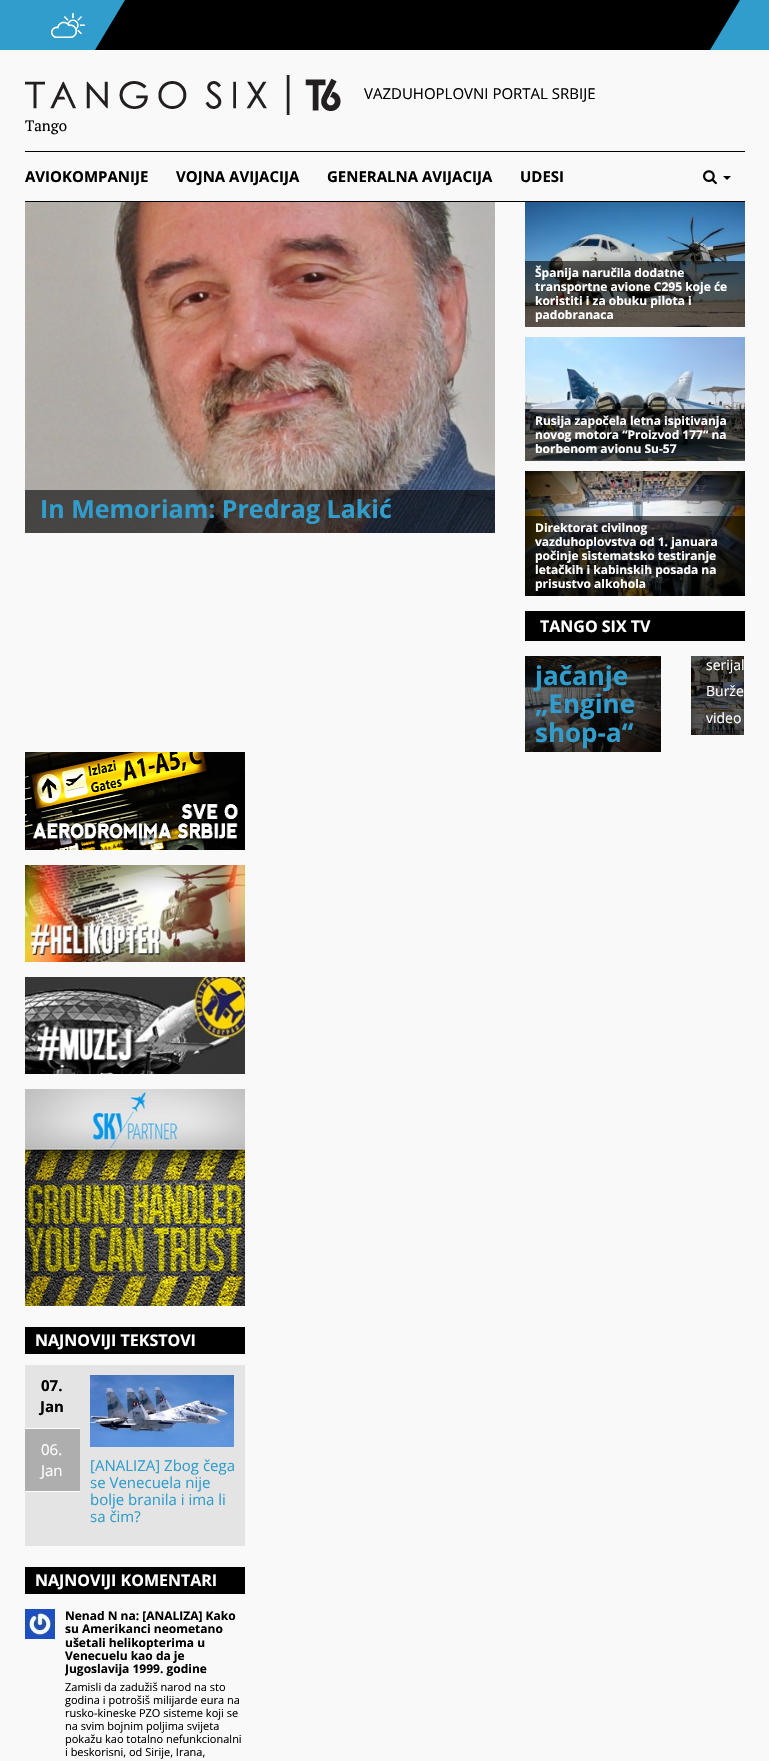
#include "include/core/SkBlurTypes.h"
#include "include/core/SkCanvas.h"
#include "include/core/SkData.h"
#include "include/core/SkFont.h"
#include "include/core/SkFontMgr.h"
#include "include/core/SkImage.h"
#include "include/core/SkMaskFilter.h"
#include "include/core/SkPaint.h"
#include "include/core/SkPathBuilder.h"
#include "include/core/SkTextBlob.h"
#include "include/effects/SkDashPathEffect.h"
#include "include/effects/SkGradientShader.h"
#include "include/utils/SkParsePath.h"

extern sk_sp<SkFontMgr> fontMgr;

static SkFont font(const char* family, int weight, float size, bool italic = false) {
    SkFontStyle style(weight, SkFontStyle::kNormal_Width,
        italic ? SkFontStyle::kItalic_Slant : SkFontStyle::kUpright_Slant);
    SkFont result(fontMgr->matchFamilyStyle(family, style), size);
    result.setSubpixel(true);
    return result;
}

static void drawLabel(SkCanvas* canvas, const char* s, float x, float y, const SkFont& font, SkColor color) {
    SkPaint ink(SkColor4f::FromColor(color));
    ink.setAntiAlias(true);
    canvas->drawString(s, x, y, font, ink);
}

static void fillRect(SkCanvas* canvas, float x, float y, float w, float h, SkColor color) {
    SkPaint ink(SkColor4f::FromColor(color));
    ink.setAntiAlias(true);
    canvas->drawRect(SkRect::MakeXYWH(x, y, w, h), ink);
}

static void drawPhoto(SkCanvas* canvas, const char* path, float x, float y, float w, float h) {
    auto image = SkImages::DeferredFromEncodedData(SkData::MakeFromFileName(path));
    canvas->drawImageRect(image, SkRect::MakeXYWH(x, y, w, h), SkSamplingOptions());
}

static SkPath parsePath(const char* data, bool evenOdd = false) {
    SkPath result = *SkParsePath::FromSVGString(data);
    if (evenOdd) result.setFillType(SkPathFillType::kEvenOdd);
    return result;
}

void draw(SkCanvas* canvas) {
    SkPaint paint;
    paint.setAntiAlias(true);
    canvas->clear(0xFFF9F9F9);
    fillRect(canvas, 0, 0, 769, 50, 0xFF309DCC);
    fillRect(canvas, 95, 0, 645, 50, 0xFF000000);
    paint.setColor(0xFF309DCC);
    canvas->drawPath(parsePath("M45 0H125L95 50Z"), paint);
    drawPhoto(canvas, "assets/img1.png", 51, 13, 34, 25);
    canvas->drawPath(parsePath("M740 50H710L740 0Z"), paint);
    drawPhoto(canvas, "assets/img2.png", 25, 75, 316, 40);
    SkFont font1 = font("Open Sans", 400, 15);
    drawLabel(canvas, "VAZDUHOPLOVNI PORTAL SRBIJE", 364, 99, font1, 0xFF000000);
    SkFont font2 = font("PT Serif", 400, 15);
    drawLabel(canvas, "Tango", 25, 131, font2, 0xFF000000);
    fillRect(canvas, 25, 151, 720, 1, 0xFF000000);
    fillRect(canvas, 25, 201, 720, 1, 0xFF000000);
    SkFont font3 = font("Open Sans", 700, 15);
    drawLabel(canvas, "AVIOKOMPANIJE", 25, 182, font3, 0xFF000000);
    drawLabel(canvas, "VOJNA AVIJACIJA", 176, 182, font3, 0xFF000000);
    drawLabel(canvas, "GENERALNA AVIJACIJA", 327, 182, font3, 0xFF000000);
    drawLabel(canvas, "UDESI", 520, 182, font3, 0xFF000000);
    drawPhoto(canvas, "assets/img3.png", 703, 170, 14, 15);
    paint.setColor(0xFF000000);
    canvas->drawPath(parsePath("M723 176H731L727 180Z"), paint);
    drawPhoto(canvas, "assets/img4.png", 25, 202, 470, 331);
    fillRect(canvas, 25, 490, 470, 43, 0x99000000);
    SkFont font4 = font("Open Sans", 700, 25);
    drawLabel(canvas, "In Memoriam: Predrag Lakić", 40, 518, font4, 0xFF309DCC);
    drawPhoto(canvas, "assets/img5.png", 525, 202, 220, 125);
    fillRect(canvas, 525, 261, 220, 66, 0x99000000);
    SkFont font5 = font("Open Sans", 700, 12);
    drawLabel(canvas, "Španija naručila dodatne", 535, 277, font5, 0xFFFFFFFF);
    drawLabel(canvas, "transportne avione C295 koje će", 535, 291, font5, 0xFFFFFFFF);
    drawLabel(canvas, "koristiti i za obuku pilota i", 535, 305, font5, 0xFFFFFFFF);
    drawLabel(canvas, "padobranaca", 535, 319, font5, 0xFFFFFFFF);
    drawPhoto(canvas, "assets/img6.png", 525, 337, 220, 124);
    fillRect(canvas, 525, 409, 220, 52, 0x99000000);
    drawLabel(canvas, "Rusija započela letna ispitivanja", 535, 425, font5, 0xFFFFFFFF);
    drawLabel(canvas, "novog motora “Proizvod 177“ na", 535, 439, font5, 0xFFFFFFFF);
    drawLabel(canvas, "borbenom avionu Su-57", 535, 453, font5, 0xFFFFFFFF);
    drawPhoto(canvas, "assets/img7.png", 525, 471, 220, 125);
    fillRect(canvas, 525, 516, 220, 80, 0x99000000);
    drawLabel(canvas, "Direktorat civilnog", 535, 532, font5, 0xFFFFFFFF);
    drawLabel(canvas, "vazduhoplovstva od 1. januara", 535, 546, font5, 0xFFFFFFFF);
    drawLabel(canvas, "počinje sistematsko testiranje", 535, 560, font5, 0xFFFFFFFF);
    drawLabel(canvas, "letačkih i kabinskih posada na", 535, 574, font5, 0xFFFFFFFF);
    drawLabel(canvas, "prisustvo alkohola", 535, 588, font5, 0xFFFFFFFF);
    fillRect(canvas, 525, 611, 220, 30, 0xFF000000);
    SkFont font6 = font("Open Sans", 700, 16);
    drawLabel(canvas, "TANGO SIX TV", 540, 632, font6, 0xFFFFFFFF);
    drawPhoto(canvas, "assets/img8.png", 525, 656, 136, 96);
    SkFont font7 = font("Open Sans", 700, 26);
    drawLabel(canvas, "jačanje", 535, 685, font7, 0xFF309DCC);
    drawLabel(canvas, "„Engine", 535, 713, font7, 0xFF309DCC);
    drawLabel(canvas, "shop-a“", 535, 742, font7, 0xFF309DCC);
    drawPhoto(canvas, "assets/img9.png", 691, 656, 53, 26);
    SkFont font8 = font("Open Sans", 400, 14);
    drawLabel(canvas, "serijal", 706, 670, font8, 0xFFFFFFFF);
    drawPhoto(canvas, "assets/img10.png", 691, 682, 53, 27);
    drawLabel(canvas, "Burže", 706, 696, font8, 0xFFFFFFFF);
    drawPhoto(canvas, "assets/img11.png", 691, 709, 53, 26);
    drawLabel(canvas, "video", 706, 723, font8, 0xFFFFFFFF);
    drawPhoto(canvas, "assets/img12.png", 25, 752, 220, 98);
    drawPhoto(canvas, "assets/img13.png", 25, 865, 220, 97);
    drawPhoto(canvas, "assets/img14.png", 25, 977, 220, 97);
    drawPhoto(canvas, "assets/img15.png", 25, 1089, 220, 217);
    fillRect(canvas, 25, 1327, 220, 27, 0xFF000000);
    drawLabel(canvas, "NAJNOVIJI TEKSTOVI", 35, 1346, font6, 0xFFFFFFFF);
    fillRect(canvas, 25, 1365, 220, 181, 0xFFE4E4E4);
    fillRect(canvas, 25, 1428, 55, 1, 0xFFFFFFFF);
    drawLabel(canvas, "07.", 41, 1391, font3, 0xFF000000);
    drawLabel(canvas, "Jan", 40, 1412, font3, 0xFF000000);
    fillRect(canvas, 25, 1429, 55, 62, 0xFFAEAEAE);
    fillRect(canvas, 25, 1491, 55, 1, 0xFFFFFFFF);
    drawLabel(canvas, "06.", 41, 1455, font1, 0xFFFFFFFF);
    drawLabel(canvas, "Jan", 41, 1476, font1, 0xFFFFFFFF);
    drawPhoto(canvas, "assets/img16.png", 90, 1375, 144, 72);
    drawLabel(canvas, "[ANALIZA] Zbog čega", 90, 1471, font1, 0xFF309DCC);
    drawLabel(canvas, "se Venecuela nije", 90, 1488, font1, 0xFF309DCC);
    drawLabel(canvas, "bolje branila i ima li", 90, 1505, font1, 0xFF309DCC);
    drawLabel(canvas, "sa čim?", 90, 1522, font1, 0xFF309DCC);
    fillRect(canvas, 25, 1567, 220, 27, 0xFF000000);
    drawLabel(canvas, "NAJNOVIJI KOMENTARI", 35, 1586, font6, 0xFFFFFFFF);
    drawPhoto(canvas, "assets/img17.png", 25, 1609, 30, 30);
    drawLabel(canvas, "Nenad N na: [ANALIZA] Kako", 65, 1620, font5, 0xFF000000);
    drawLabel(canvas, "su Amerikanci neometano", 65, 1633, font5, 0xFF000000);
    drawLabel(canvas, "ušetali helikopterima u", 65, 1647, font5, 0xFF000000);
    drawLabel(canvas, "Venecuelu kao da je", 65, 1660, font5, 0xFF000000);
    canvas->save();
    canvas->clipRect(SkRect::MakeXYWH(65, 1609, 180, 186));
    drawLabel(canvas, "Jugoslavija 1999. godine", 65, 1673, font5, 0xFF000000);
    canvas->restore();
    SkFont font9 = font("Open Sans", 400, 11);
    drawLabel(canvas, "Zamisli da zadužiš narod na sto", 65, 1691, font9, 0xFF000000);
    drawLabel(canvas, "godina i potrošiš milijarde eura na", 65, 1704, font9, 0xFF000000);
    drawLabel(canvas, "rusko-kineske PZO sisteme koji se", 65, 1717, font9, 0xFF000000);
    drawLabel(canvas, "na svim bojnim poljima svijeta", 65, 1730, font9, 0xFF000000);
    drawLabel(canvas, "pokažu kao totalno nefunkcionalni", 65, 1743, font9, 0xFF000000);
    drawLabel(canvas, "i beskorisni, od Sirije, Irana,", 65, 1756, font9, 0xFF000000);
}
